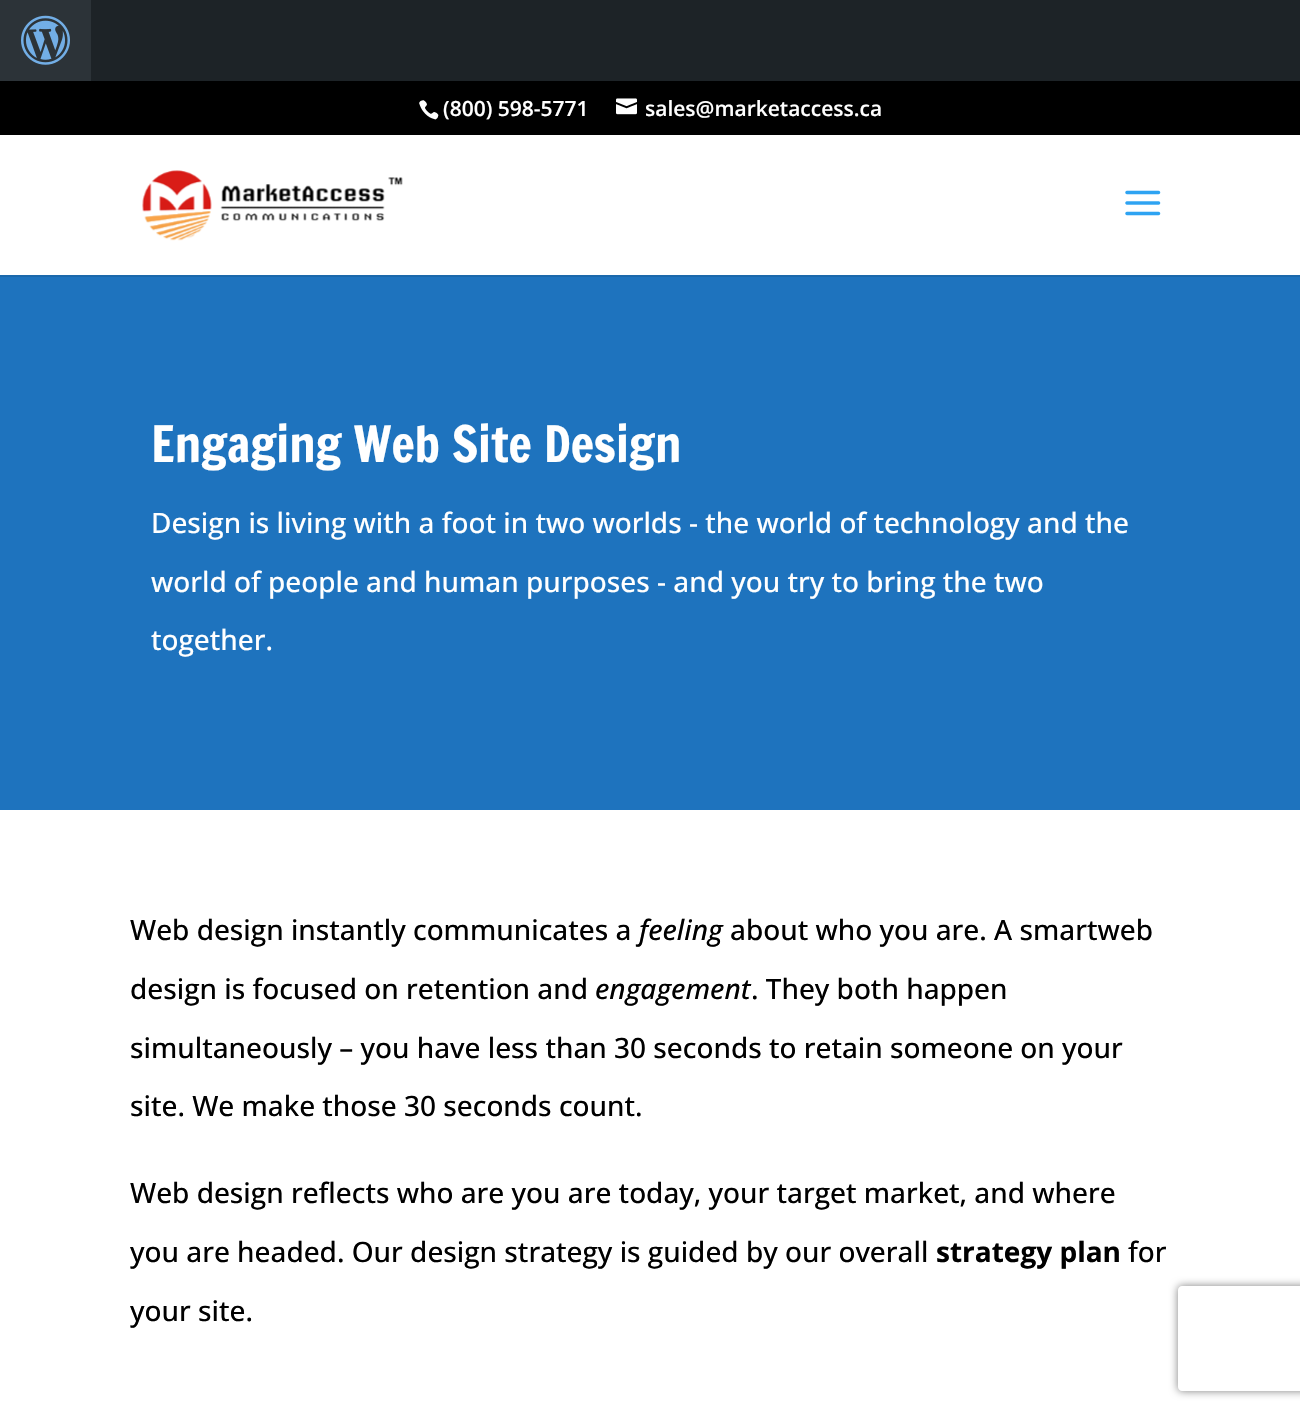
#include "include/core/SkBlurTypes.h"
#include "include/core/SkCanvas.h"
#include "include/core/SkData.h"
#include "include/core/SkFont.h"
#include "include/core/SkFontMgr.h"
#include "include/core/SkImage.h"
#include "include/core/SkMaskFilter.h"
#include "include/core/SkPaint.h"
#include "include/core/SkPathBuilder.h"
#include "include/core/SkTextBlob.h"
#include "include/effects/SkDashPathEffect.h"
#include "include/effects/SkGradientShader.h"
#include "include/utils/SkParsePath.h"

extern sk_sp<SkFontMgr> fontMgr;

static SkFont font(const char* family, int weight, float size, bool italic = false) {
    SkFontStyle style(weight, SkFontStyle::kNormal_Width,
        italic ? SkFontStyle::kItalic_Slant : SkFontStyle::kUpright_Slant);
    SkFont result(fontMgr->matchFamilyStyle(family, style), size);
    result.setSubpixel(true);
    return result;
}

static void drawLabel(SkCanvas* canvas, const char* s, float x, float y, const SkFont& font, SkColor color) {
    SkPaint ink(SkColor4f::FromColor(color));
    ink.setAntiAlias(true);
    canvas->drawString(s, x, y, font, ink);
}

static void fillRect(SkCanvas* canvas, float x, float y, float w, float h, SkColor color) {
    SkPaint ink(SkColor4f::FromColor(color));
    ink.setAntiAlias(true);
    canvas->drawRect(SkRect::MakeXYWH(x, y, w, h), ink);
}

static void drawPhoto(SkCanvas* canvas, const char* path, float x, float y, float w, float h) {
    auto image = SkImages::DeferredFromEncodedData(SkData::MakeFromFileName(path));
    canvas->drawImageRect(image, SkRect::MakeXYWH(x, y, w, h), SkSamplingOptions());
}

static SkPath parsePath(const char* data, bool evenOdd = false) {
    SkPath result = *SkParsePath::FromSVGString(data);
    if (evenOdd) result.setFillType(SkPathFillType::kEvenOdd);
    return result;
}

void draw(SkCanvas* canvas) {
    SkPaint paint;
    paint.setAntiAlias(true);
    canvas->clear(0xFFFFFFFF);
    fillRect(canvas, 91, 0, 1209, 81, 0xFF1D2327);
    fillRect(canvas, 0, 0, 91, 81, 0xFF2C3338);
    drawPhoto(canvas, "assets/img1.png", 21, 15, 49, 50);
    fillRect(canvas, 0, 81, 1300, 54, 0xFF000000);
    drawPhoto(canvas, "assets/img2.png", 419, 100, 20, 20);
    SkFont font1 = font("Open Sans", 600, 21);
    drawLabel(canvas, "(800) 598-5771", 443, 116, font1, 0xFFFFFFFF);
    drawPhoto(canvas, "assets/img3.png", 616, 98, 21, 17);
    drawLabel(canvas, "sales@marketaccess.ca", 645, 116, font1, 0xFFFFFFFF);
    fillRect(canvas, 0, 275, 1300, 2, 0xFF1B68AB);
    drawPhoto(canvas, "assets/img4.png", 142, 170, 261, 71);
    drawPhoto(canvas, "assets/img5.png", 1125, 190, 36, 26);
    fillRect(canvas, 0, 277, 1300, 533, 0xFF1E73BE);
    SkFont font2 = font("Francois One", 400, 49);
    drawLabel(canvas, "Engaging Web Site Design", 151, 462, font2, 0xFFFFFFFF);
    SkFont font3 = font("Open Sans", 500, 28);
    drawLabel(canvas, "Design is living with a foot in two worlds - the world of technology and the", 151, 533, font3, 0xFFFFFFFF);
    drawLabel(canvas, "world of people and human purposes - and you try to bring the two", 151, 592, font3, 0xFFFFFFFF);
    drawLabel(canvas, "together.", 151, 650, font3, 0xFFFFFFFF);
    drawLabel(canvas, "Web design instantly communicates a", 130, 940, font3, 0xFF000000);
    SkFont font4 = font("Open Sans", 500, 28, true);
    drawLabel(canvas, "feeling", 639, 940, font4, 0xFF000000);
    drawLabel(canvas, "about who you are. A smartweb", 730, 940, font3, 0xFF000000);
    drawLabel(canvas, "design is focused on retention and", 130, 999, font3, 0xFF000000);
    drawLabel(canvas, "engagement", 595, 999, font4, 0xFF000000);
    drawLabel(canvas, ". They both happen", 751, 999, font3, 0xFF000000);
    drawLabel(canvas, "simultaneously – you have less than 30 seconds to retain someone on your", 130, 1058, font3, 0xFF000000);
    drawLabel(canvas, "site. We make those 30 seconds count.", 130, 1116, font3, 0xFF000000);
    drawLabel(canvas, "Web design reflects who are you are today, your target market, and where", 130, 1203, font3, 0xFF000000);
    drawLabel(canvas, "you are headed. Our design strategy is guided by our overall", 130, 1262, font3, 0xFF000000);
    SkFont font5 = font("Open Sans", 700, 28);
    drawLabel(canvas, "strategy plan", 936, 1262, font5, 0xFF000000);
    drawLabel(canvas, "for", 1128, 1262, font3, 0xFF000000);
    drawLabel(canvas, "your site.", 130, 1321, font3, 0xFF000000);
    canvas->save();
    canvas->clipPath(parsePath("M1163 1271H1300V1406H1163ZM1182 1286H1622C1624 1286 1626 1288 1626 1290V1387C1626 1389 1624 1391 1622 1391H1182C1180 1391 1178 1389 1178 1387V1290C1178 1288 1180 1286 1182 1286Z", true), true);
    paint.setColor(0xFF808080);
    paint.setMaskFilter(SkMaskFilter::MakeBlur(kNormal_SkBlurStyle, 4.5f));
    canvas->drawRoundRect(SkRect::MakeXYWH(1178, 1286, 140, 105), 4, 4, paint);
    paint.setMaskFilter(nullptr);
    canvas->restore();
}
